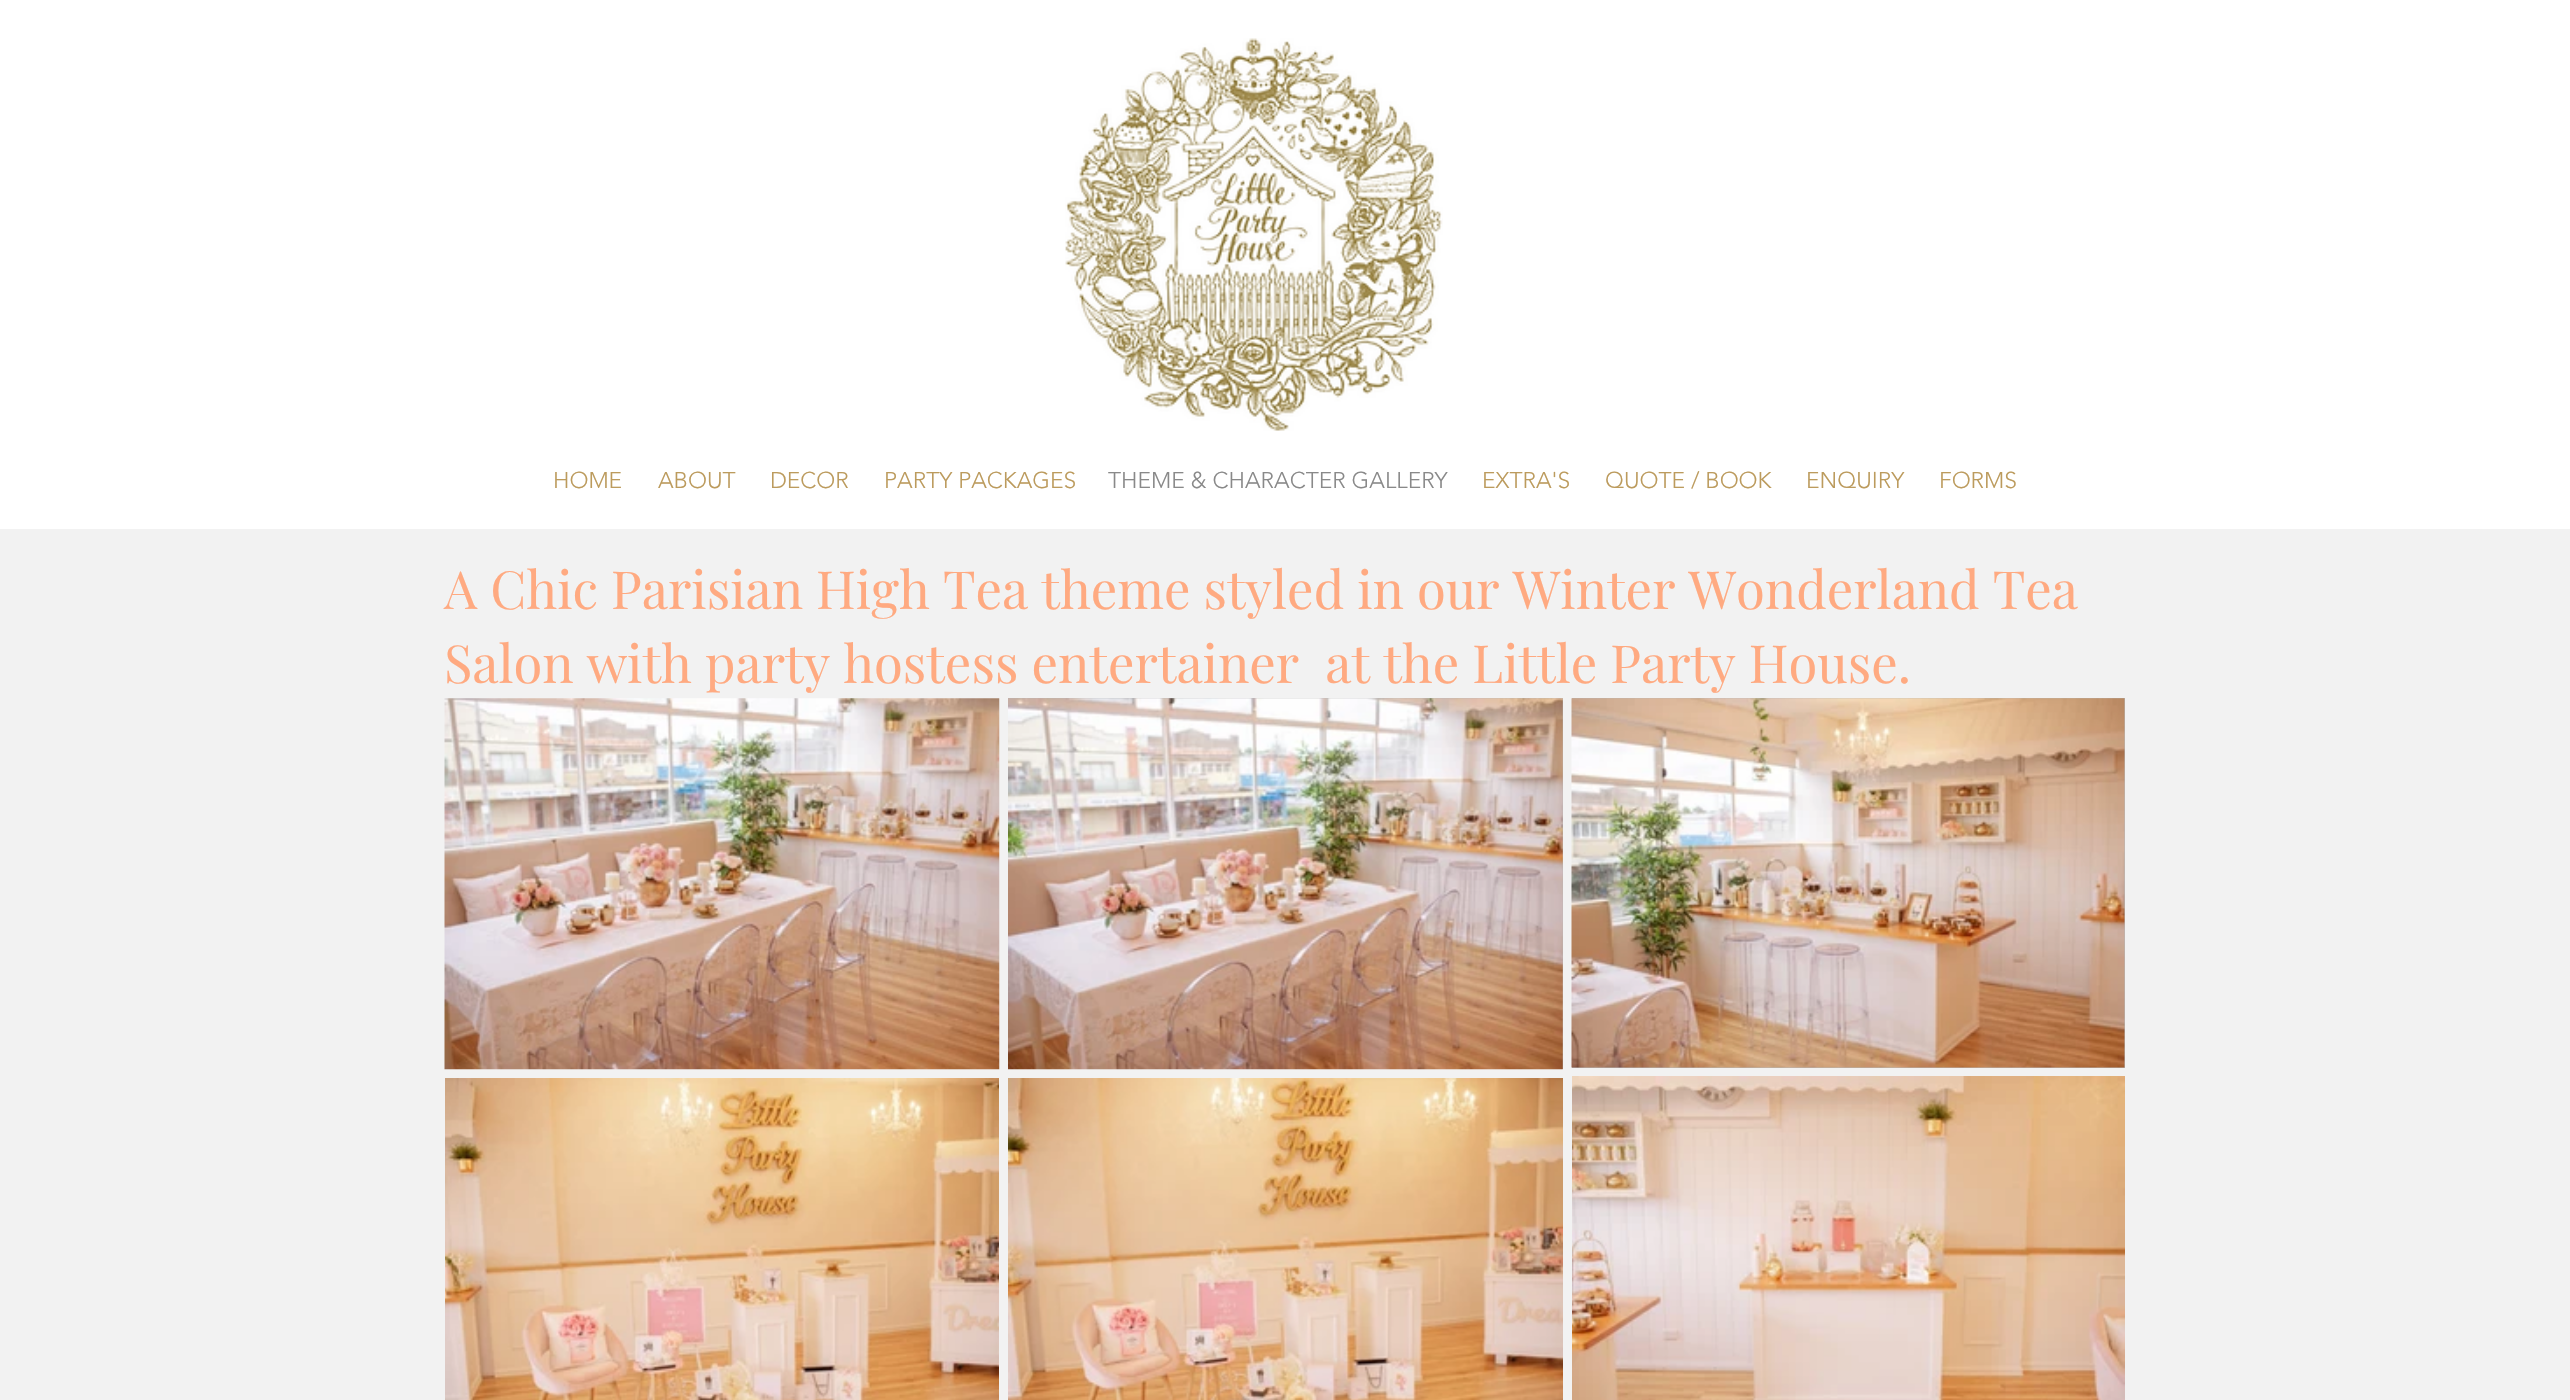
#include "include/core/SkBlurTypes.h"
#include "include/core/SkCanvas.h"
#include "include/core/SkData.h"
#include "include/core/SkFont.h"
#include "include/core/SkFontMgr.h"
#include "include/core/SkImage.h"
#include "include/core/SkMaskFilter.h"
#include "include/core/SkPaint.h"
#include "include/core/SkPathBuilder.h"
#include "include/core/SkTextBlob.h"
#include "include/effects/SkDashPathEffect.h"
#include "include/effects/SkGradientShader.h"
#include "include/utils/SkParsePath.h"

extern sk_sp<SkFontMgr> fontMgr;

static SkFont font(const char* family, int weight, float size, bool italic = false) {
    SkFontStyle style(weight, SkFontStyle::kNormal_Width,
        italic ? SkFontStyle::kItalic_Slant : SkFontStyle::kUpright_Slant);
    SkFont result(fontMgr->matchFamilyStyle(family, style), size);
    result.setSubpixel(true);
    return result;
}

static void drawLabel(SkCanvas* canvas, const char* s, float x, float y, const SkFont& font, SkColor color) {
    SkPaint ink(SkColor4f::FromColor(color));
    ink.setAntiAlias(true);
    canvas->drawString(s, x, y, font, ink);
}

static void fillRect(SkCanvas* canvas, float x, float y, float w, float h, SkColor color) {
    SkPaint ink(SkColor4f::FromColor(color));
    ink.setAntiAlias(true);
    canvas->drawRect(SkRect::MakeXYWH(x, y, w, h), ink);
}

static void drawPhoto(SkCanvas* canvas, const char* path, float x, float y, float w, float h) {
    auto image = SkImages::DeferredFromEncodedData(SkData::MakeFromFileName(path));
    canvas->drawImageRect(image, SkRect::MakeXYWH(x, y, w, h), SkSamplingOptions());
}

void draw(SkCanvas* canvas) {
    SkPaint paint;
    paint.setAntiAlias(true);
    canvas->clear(0xFFF2F2F2);
    fillRect(canvas, 0, 0, 2570, 529, 0xFFFFFFFF);
    drawPhoto(canvas, "assets/img1.png", 1065, 38, 378, 393);
    SkFont font1 = font("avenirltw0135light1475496", 300, 22.75f);
    drawLabel(canvas, "HOME", 553, 488, font1, 0xFFBC9B5D);
    drawLabel(canvas, "ABOUT", 658, 488, font1, 0xFFBC9B5D);
    drawLabel(canvas, "DECOR", 770, 488, font1, 0xFFBC9B5D);
    drawLabel(canvas, "PARTY PACKAGES", 884, 488, font1, 0xFFBC9B5D);
    drawLabel(canvas, "THEME & CHARACTER GALLERY", 1108, 488, font1, 0xFF898989);
    drawLabel(canvas, "EXTRA'S", 1482, 488, font1, 0xFFBC9B5D);
    drawLabel(canvas, "QUOTE / BOOK", 1605, 488, font1, 0xFFBC9B5D);
    drawLabel(canvas, "ENQUIRY", 1806, 488, font1, 0xFFBC9B5D);
    drawLabel(canvas, "FORMS", 1939, 488, font1, 0xFFBC9B5D);
    SkFont font2 = font("Playfair Display", 400, 52.5f);
    drawLabel(canvas, "A Chic Parisian High Tea theme styled in our Winter Wonderland Tea", 444, 609, font2, 0xFFFFAA81);
    drawLabel(canvas, "Salon with party hostess entertainer  at the Little Party House.", 444, 683, font2, 0xFFFFAA81);
    drawPhoto(canvas, "assets/img2.png", 444, 698, 556, 372);
    fillRect(canvas, 1008, 698, 555, 371, 0xFFB6B6B6);
    drawPhoto(canvas, "assets/img3.png", 1008, 698, 555, 372);
    fillRect(canvas, 1572, 698, 553, 370, 0xFFB6B6B6);
    drawPhoto(canvas, "assets/img4.png", 1571, 698, 554, 370);
    drawPhoto(canvas, "assets/img5.png", 445, 1078, 554, 322);
    drawPhoto(canvas, "assets/img6.png", 1008, 1078, 555, 322);
    drawPhoto(canvas, "assets/img7.png", 1572, 1076, 553, 324);
}
